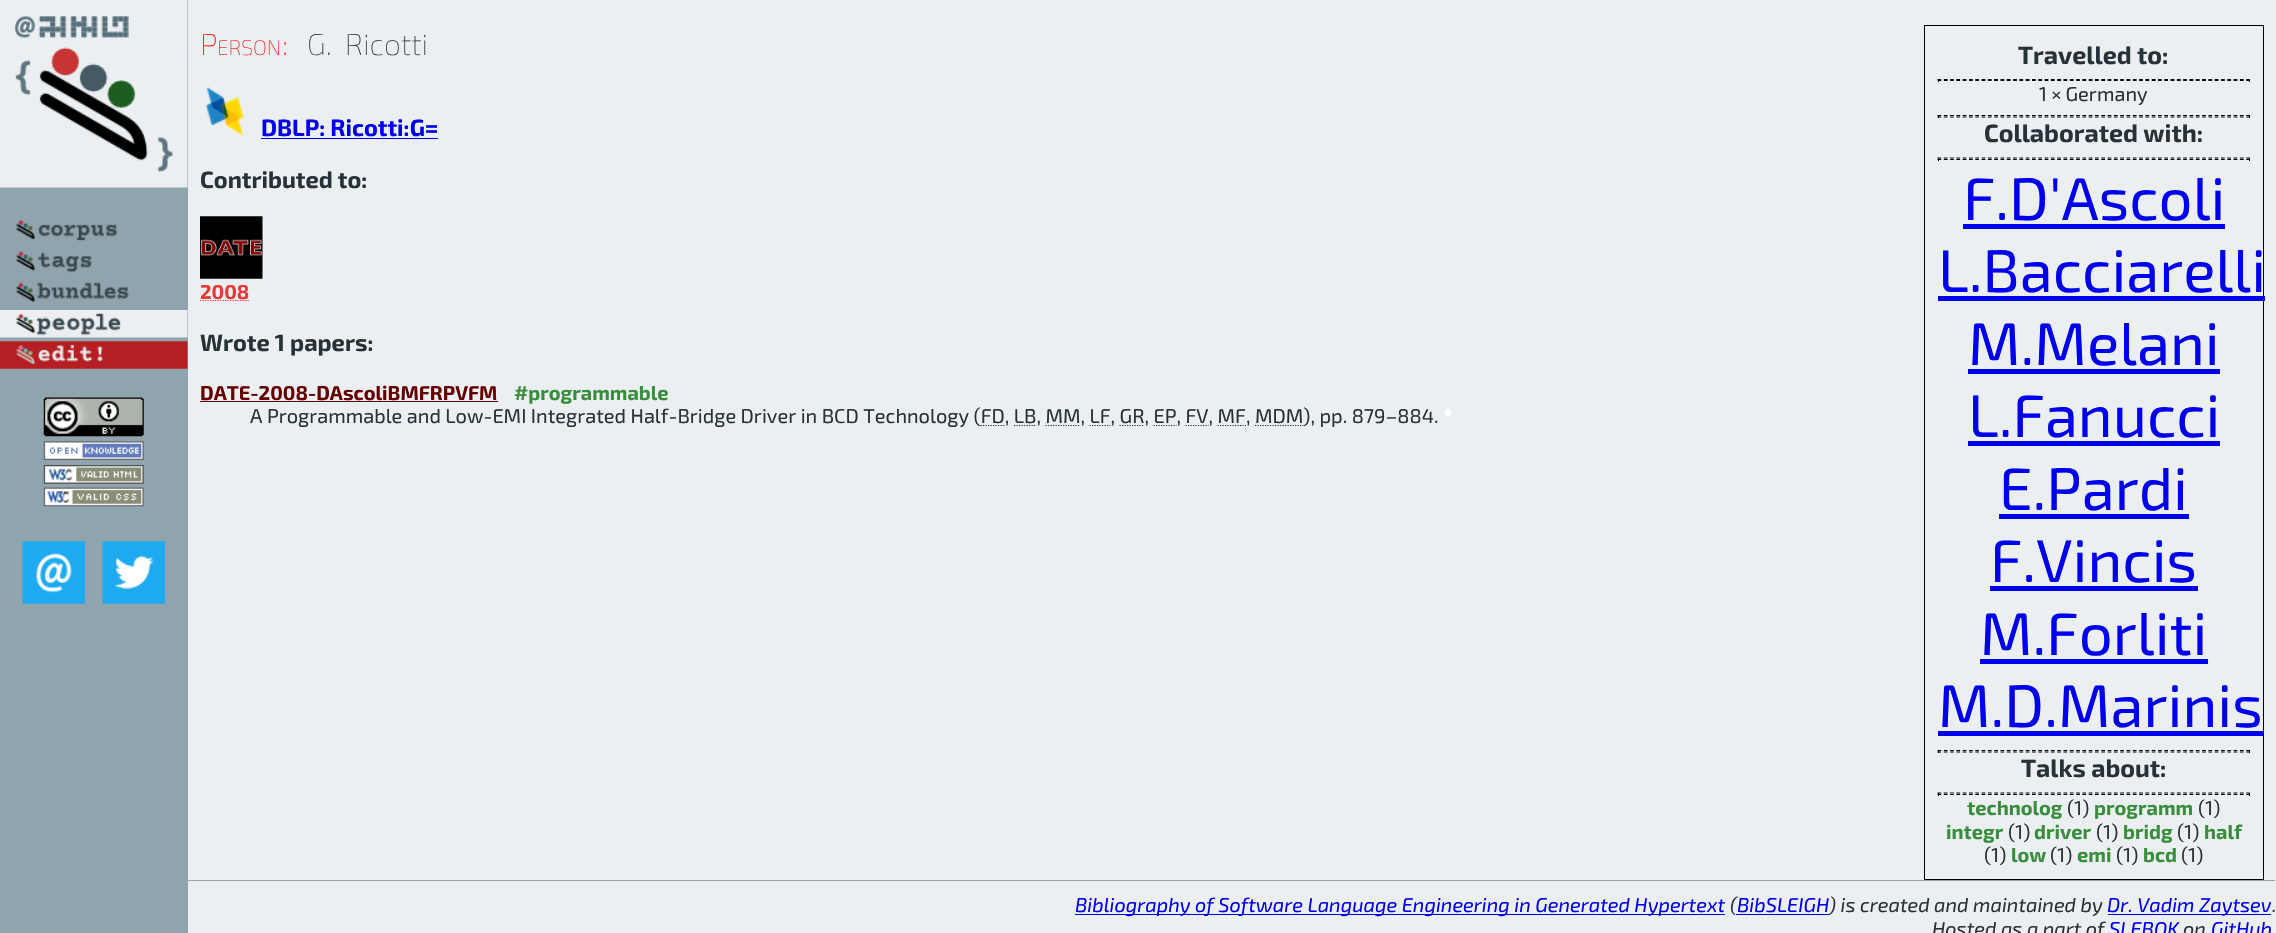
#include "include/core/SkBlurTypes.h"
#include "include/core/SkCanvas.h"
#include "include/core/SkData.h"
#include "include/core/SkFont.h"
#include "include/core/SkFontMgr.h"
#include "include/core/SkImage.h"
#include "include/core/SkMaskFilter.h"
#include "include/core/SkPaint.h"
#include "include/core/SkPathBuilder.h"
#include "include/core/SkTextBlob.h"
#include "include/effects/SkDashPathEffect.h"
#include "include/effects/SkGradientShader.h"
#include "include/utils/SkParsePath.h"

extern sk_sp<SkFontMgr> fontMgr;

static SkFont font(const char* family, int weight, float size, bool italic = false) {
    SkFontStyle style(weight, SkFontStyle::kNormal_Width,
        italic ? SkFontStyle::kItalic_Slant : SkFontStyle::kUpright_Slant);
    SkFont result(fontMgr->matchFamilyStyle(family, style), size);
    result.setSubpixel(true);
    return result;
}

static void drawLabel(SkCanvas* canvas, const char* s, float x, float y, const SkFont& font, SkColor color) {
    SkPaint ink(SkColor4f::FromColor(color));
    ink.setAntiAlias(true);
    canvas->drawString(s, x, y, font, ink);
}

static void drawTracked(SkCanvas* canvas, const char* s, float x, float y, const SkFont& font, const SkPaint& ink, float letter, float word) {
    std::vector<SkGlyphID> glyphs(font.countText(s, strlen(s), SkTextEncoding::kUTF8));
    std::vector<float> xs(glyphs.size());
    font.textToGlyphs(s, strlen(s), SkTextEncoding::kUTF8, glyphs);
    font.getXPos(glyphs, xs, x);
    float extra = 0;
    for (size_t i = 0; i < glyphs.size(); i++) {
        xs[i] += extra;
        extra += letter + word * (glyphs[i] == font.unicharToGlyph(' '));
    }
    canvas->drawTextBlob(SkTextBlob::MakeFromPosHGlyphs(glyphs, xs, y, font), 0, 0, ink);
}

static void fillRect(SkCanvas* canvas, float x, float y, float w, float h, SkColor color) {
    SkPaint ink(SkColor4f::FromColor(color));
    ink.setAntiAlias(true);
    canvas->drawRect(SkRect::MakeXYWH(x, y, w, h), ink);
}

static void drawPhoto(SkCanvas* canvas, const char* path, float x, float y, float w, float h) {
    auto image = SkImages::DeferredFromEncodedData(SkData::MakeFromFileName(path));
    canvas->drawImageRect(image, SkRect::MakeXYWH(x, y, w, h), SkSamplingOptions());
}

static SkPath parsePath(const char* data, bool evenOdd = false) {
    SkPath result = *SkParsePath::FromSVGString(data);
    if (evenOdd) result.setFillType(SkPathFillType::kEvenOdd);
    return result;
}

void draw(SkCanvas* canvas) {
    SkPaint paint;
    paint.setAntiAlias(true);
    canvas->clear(0xFFECEFF1);
    fillRect(canvas, 0, 0, 188, 933, 0xFF90A4AE);
    drawPhoto(canvas, "assets/img1.png", 0, 0, 188, 188);
    drawPhoto(canvas, "assets/img2.png", 16, 219, 102, 22);
    drawPhoto(canvas, "assets/img3.png", 16, 251, 76, 22);
    drawPhoto(canvas, "assets/img4.png", 16, 282, 113, 21);
    drawPhoto(canvas, "assets/img5.png", 0, 310, 188, 28);
    drawPhoto(canvas, "assets/img6.png", 0, 341, 188, 28);
    drawPhoto(canvas, "assets/img7.png", 43, 397, 101, 40);
    drawPhoto(canvas, "assets/img8.png", 43, 441, 101, 19);
    drawPhoto(canvas, "assets/img9.png", 43, 465, 101, 19);
    drawPhoto(canvas, "assets/img10.png", 43, 487, 101, 20);
    drawPhoto(canvas, "assets/img11.png", 22, 541, 63, 63);
    drawPhoto(canvas, "assets/img12.png", 102, 541, 63, 63);
    SkFont font1 = font("Exo 2", 100, 30);
    drawLabel(canvas, "P", 200, 55, font1, 0xFFFF0000);
    SkFont font2 = font("Exo 2", 100, 21);
    drawLabel(canvas, "ERSON", 217, 55, font2, 0xFFFF0000);
    drawLabel(canvas, ":", 282, 55, font1, 0xFFFF0000);
    paint.setColor(0xFF263238);
    drawTracked(canvas, "G. Ricotti", 307, 55, font1, paint, 0, 6);
    paint.setStroke(true);
    paint.setStrokeWidth(1);
    paint.setColor(0xFF000000);
    canvas->drawRect(SkRect::MakeXYWH(1924.5f, 25.5f, 339, 854), paint);
    SkFont font3 = font("Exo 2", 700, 25);
    drawLabel(canvas, "Travelled to:", 2018, 64, font3, 0xFF263238);
    paint.setStrokeWidth(1.2f);
    paint.setPathEffect(SkDashPathEffect::Make({{3.75f, 2.55f}}, 0));
    canvas->drawPath(parsePath("M1937.5 79.5H2250"), paint);
    paint.setPathEffect(nullptr);
    fillRect(canvas, 2249, 79, 1, 3, 0xFF000000);
    paint.setPathEffect(SkDashPathEffect::Make({{3.75f, 2.55f}}, 0));
    canvas->drawPath(parsePath("M1937.5 80.5H2250"), paint);
    paint.setPathEffect(nullptr);
    fillRect(canvas, 1938, 79, 1, 3, 0xFF000000);
    SkFont font4 = font("Exo 2", 400, 20);
    drawLabel(canvas, "1 × Germany", 2039, 101, font4, 0xFF263238);
    paint.setPathEffect(SkDashPathEffect::Make({{3.75f, 2.55f}}, 0));
    canvas->drawPath(parsePath("M1937.5 115.5H2250"), paint);
    paint.setPathEffect(nullptr);
    fillRect(canvas, 2249, 115, 1, 3, 0xFF000000);
    paint.setPathEffect(SkDashPathEffect::Make({{3.75f, 2.55f}}, 0));
    canvas->drawPath(parsePath("M1937.5 117H2250"), paint);
    paint.setPathEffect(nullptr);
    fillRect(canvas, 1938, 115, 1, 3, 0xFF000000);
    drawLabel(canvas, "Collaborated with:", 1984, 142, font3, 0xFF263238);
    paint.setPathEffect(SkDashPathEffect::Make({{3.75f, 2.55f}}, 0));
    canvas->drawPath(parsePath("M1937.5 158H2250"), paint);
    paint.setPathEffect(nullptr);
    fillRect(canvas, 2249, 158, 1, 3, 0xFF000000);
    paint.setPathEffect(SkDashPathEffect::Make({{3.75f, 2.55f}}, 0));
    canvas->drawPath(parsePath("M1937.5 159.5H2250"), paint);
    paint.setPathEffect(nullptr);
    fillRect(canvas, 1938, 158, 1, 3, 0xFF000000);
    SkFont font5 = font("Exo 2", 400, 60);
    drawLabel(canvas, "F.D'Ascoli", 1963, 220, font5, 0xFF0000EE);
    fillRect(canvas, 1963, 224, 262, 5, 0xFF0000EE);
    drawLabel(canvas, "L.Bacciarelli", 1938, 292, font5, 0xFF0000EE);
    fillRect(canvas, 1938, 296, 327, 5, 0xFF0000EE);
    drawLabel(canvas, "M.Melani", 1968, 365, font5, 0xFF0000EE);
    fillRect(canvas, 1968, 369, 252, 5, 0xFF0000EE);
    drawLabel(canvas, "L.Fanucci", 1968, 437, font5, 0xFF0000EE);
    fillRect(canvas, 1968, 441, 252, 5, 0xFF0000EE);
    drawLabel(canvas, "E.Pardi", 1999, 510, font5, 0xFF0000EE);
    fillRect(canvas, 1999, 514, 190, 5, 0xFF0000EE);
    drawLabel(canvas, "F.Vincis", 1990, 582, font5, 0xFF0000EE);
    fillRect(canvas, 1990, 586, 208, 5, 0xFF0000EE);
    drawLabel(canvas, "M.Forliti", 1980, 655, font5, 0xFF0000EE);
    fillRect(canvas, 1980, 659, 228, 5, 0xFF0000EE);
    drawLabel(canvas, "M.D.Marinis", 1938, 727, font5, 0xFF0000EE);
    fillRect(canvas, 1938, 731, 325, 5, 0xFF0000EE);
    paint.setPathEffect(SkDashPathEffect::Make({{3.75f, 2.55f}}, 0));
    canvas->drawPath(parsePath("M1937.5 750.5H2250"), paint);
    paint.setPathEffect(nullptr);
    fillRect(canvas, 2249, 750, 1, 3, 0xFF000000);
    paint.setPathEffect(SkDashPathEffect::Make({{3.75f, 2.55f}}, 0));
    canvas->drawPath(parsePath("M1937.5 752H2250"), paint);
    paint.setPathEffect(nullptr);
    fillRect(canvas, 1938, 750, 1, 3, 0xFF000000);
    drawLabel(canvas, "Talks about:", 2021, 777, font3, 0xFF263238);
    paint.setPathEffect(SkDashPathEffect::Make({{3.75f, 2.55f}}, 0));
    canvas->drawPath(parsePath("M1937.5 793H2250"), paint);
    paint.setPathEffect(nullptr);
    fillRect(canvas, 2249, 793, 1, 3, 0xFF000000);
    paint.setPathEffect(SkDashPathEffect::Make({{3.75f, 2.55f}}, 0));
    canvas->drawPath(parsePath("M1937.5 794.5H2250"), paint);
    paint.setPathEffect(nullptr);
    fillRect(canvas, 1938, 793, 1, 3, 0xFF000000);
    SkFont font6 = font("Exo 2", 700, 20);
    drawLabel(canvas, "technolog", 1967, 815, font6, 0xFF388E3C);
    drawLabel(canvas, "(1)", 2067, 815, font4, 0xFF263238);
    drawLabel(canvas, "programm", 2094, 815, font6, 0xFF388E3C);
    drawLabel(canvas, "(1)", 2198, 815, font4, 0xFF263238);
    drawLabel(canvas, "integr", 1946, 839, font6, 0xFF388E3C);
    drawLabel(canvas, "(1)", 2008, 839, font4, 0xFF263238);
    drawLabel(canvas, "driver", 2034, 839, font6, 0xFF388E3C);
    drawLabel(canvas, "(1)", 2096, 839, font4, 0xFF263238);
    drawLabel(canvas, "bridg", 2123, 839, font6, 0xFF388E3C);
    drawLabel(canvas, "(1)", 2177, 839, font4, 0xFF263238);
    drawLabel(canvas, "half", 2204, 839, font6, 0xFF388E3C);
    drawLabel(canvas, "(1)", 1984, 862, font4, 0xFF263238);
    drawLabel(canvas, "low", 2011, 862, font6, 0xFF388E3C);
    drawLabel(canvas, "(1)", 2050, 862, font4, 0xFF263238);
    drawLabel(canvas, "emi", 2077, 862, font6, 0xFF388E3C);
    drawLabel(canvas, "(1)", 2116, 862, font4, 0xFF263238);
    drawLabel(canvas, "bcd", 2143, 862, font6, 0xFF388E3C);
    drawLabel(canvas, "(1)", 2181, 862, font4, 0xFF263238);
    drawPhoto(canvas, "assets/img13.png", 206, 87, 38, 49);
    SkFont font7 = font("Exo 2", 700, 23.5f);
    drawLabel(canvas, "DBLP: Ricotti:G=", 261, 136, font7, 0xFF0000EE);
    fillRect(canvas, 261, 138, 177, 1, 0xFF0000EE);
    drawLabel(canvas, "Contributed to:", 200, 188, font7, 0xFF263238);
    drawPhoto(canvas, "assets/img14.png", 200, 216, 63, 63);
    paint.setColor(0xFFE53935);
    paint.setPathEffect(SkDashPathEffect::Make({{1.25f, 1.25f}}, 0));
    canvas->drawPath(parsePath("M200 300.5H249.5"), paint);
    paint.setPathEffect(nullptr);
    drawLabel(canvas, "2008", 200, 299, font6, 0xFFE53935);
    drawLabel(canvas, "Wrote 1 papers:", 200, 351, font7, 0xFF263238);
    drawLabel(canvas, "DATE-2008-DAscoliBMFRPVFM", 200, 400, font6, 0xFF660000);
    fillRect(canvas, 200, 401, 298, 1, 0xFF660000);
    drawLabel(canvas, "#programmable", 514, 400, font6, 0xFF388E3C);
    drawLabel(canvas, "A Programmable and Low-EMI Integrated Half-Bridge Driver in BCD Technology (FD, LB, MM, LF, GR, EP, FV, MF, MDM), pp. 879–884.", 250, 423, font4, 0xFF263238);
    paint.setColor(0xFF263238);
    paint.setPathEffect(SkDashPathEffect::Make({{1.25f, 1.25f}}, 0));
    canvas->drawPath(parsePath("M980.5 425.5H1004.5M1014 425.5H1036.5"), paint);
    paint.setPathEffect(nullptr);
    paint.setPathEffect(SkDashPathEffect::Make({{1.25f, 1.25f}}, 0));
    canvas->drawPath(parsePath("M1045.5 425.5H1080.5"), paint);
    paint.setPathEffect(nullptr);
    paint.setPathEffect(SkDashPathEffect::Make({{1.25f, 1.25f}}, 0));
    canvas->drawPath(parsePath("M1089.5 425.5H1110.5M1119.5 425.5H1144.5"), paint);
    paint.setPathEffect(nullptr);
    paint.setPathEffect(SkDashPathEffect::Make({{1.25f, 1.25f}}, 0));
    canvas->drawPath(parsePath("M1153.5 425.5H1176.5M1185.5 425.5H1208.5"), paint);
    paint.setPathEffect(nullptr);
    paint.setPathEffect(SkDashPathEffect::Make({{1.25f, 1.25f}}, 0));
    canvas->drawPath(parsePath("M1217.5 425.5H1246"), paint);
    paint.setPathEffect(nullptr);
    paint.setPathEffect(SkDashPathEffect::Make({{1.25f, 1.25f}}, 0));
    canvas->drawPath(parsePath("M1255 425.5H1303.5"), paint);
    paint.setPathEffect(nullptr);
    fillRect(canvas, 1445, 410, 6, 6, 0xFFFFFFFF);
    fillRect(canvas, 188, 880, 2088, 1, 0xFF9F9F9F);
    fillRect(canvas, 2275, 880, 1, 3, 0xFFEEEEEE);
    fillRect(canvas, 188, 881, 2088, 1, 0xFFEEEEEE);
    fillRect(canvas, 1075, 914, 650, 1, 0xFF0000EE);
    SkFont font8 = font("Exo 2", 400, 20, true);
    drawLabel(canvas, "Bibliography of Software Language Engineering in Generated Hypertext", 1075, 912, font8, 0xFF0000EE);
    drawLabel(canvas, "(", 1730, 912, font8, 0xFF263238);
    drawLabel(canvas, "BibSLEIGH", 1737, 912, font8, 0xFF0000EE);
    fillRect(canvas, 1736, 914, 93, 1, 0xFF0000EE);
    drawLabel(canvas, ") is created and maintained by", 1829, 912, font8, 0xFF263238);
    fillRect(canvas, 2108, 914, 163, 1, 0xFF0000EE);
    drawLabel(canvas, "Dr. Vadim Zaytsev", 2107, 912, font8, 0xFF0000EE);
    drawLabel(canvas, ".", 2272, 912, font8, 0xFF263238);
    drawLabel(canvas, "Hosted as a part of", 1932, 936, font8, 0xFF263238);
    drawLabel(canvas, "SLEBOK", 2109, 936, font8, 0xFF0000EE);
    drawLabel(canvas, "on", 2183, 936, font8, 0xFF263238);
    drawLabel(canvas, "GitHub", 2211, 936, font8, 0xFF0000EE);
}
